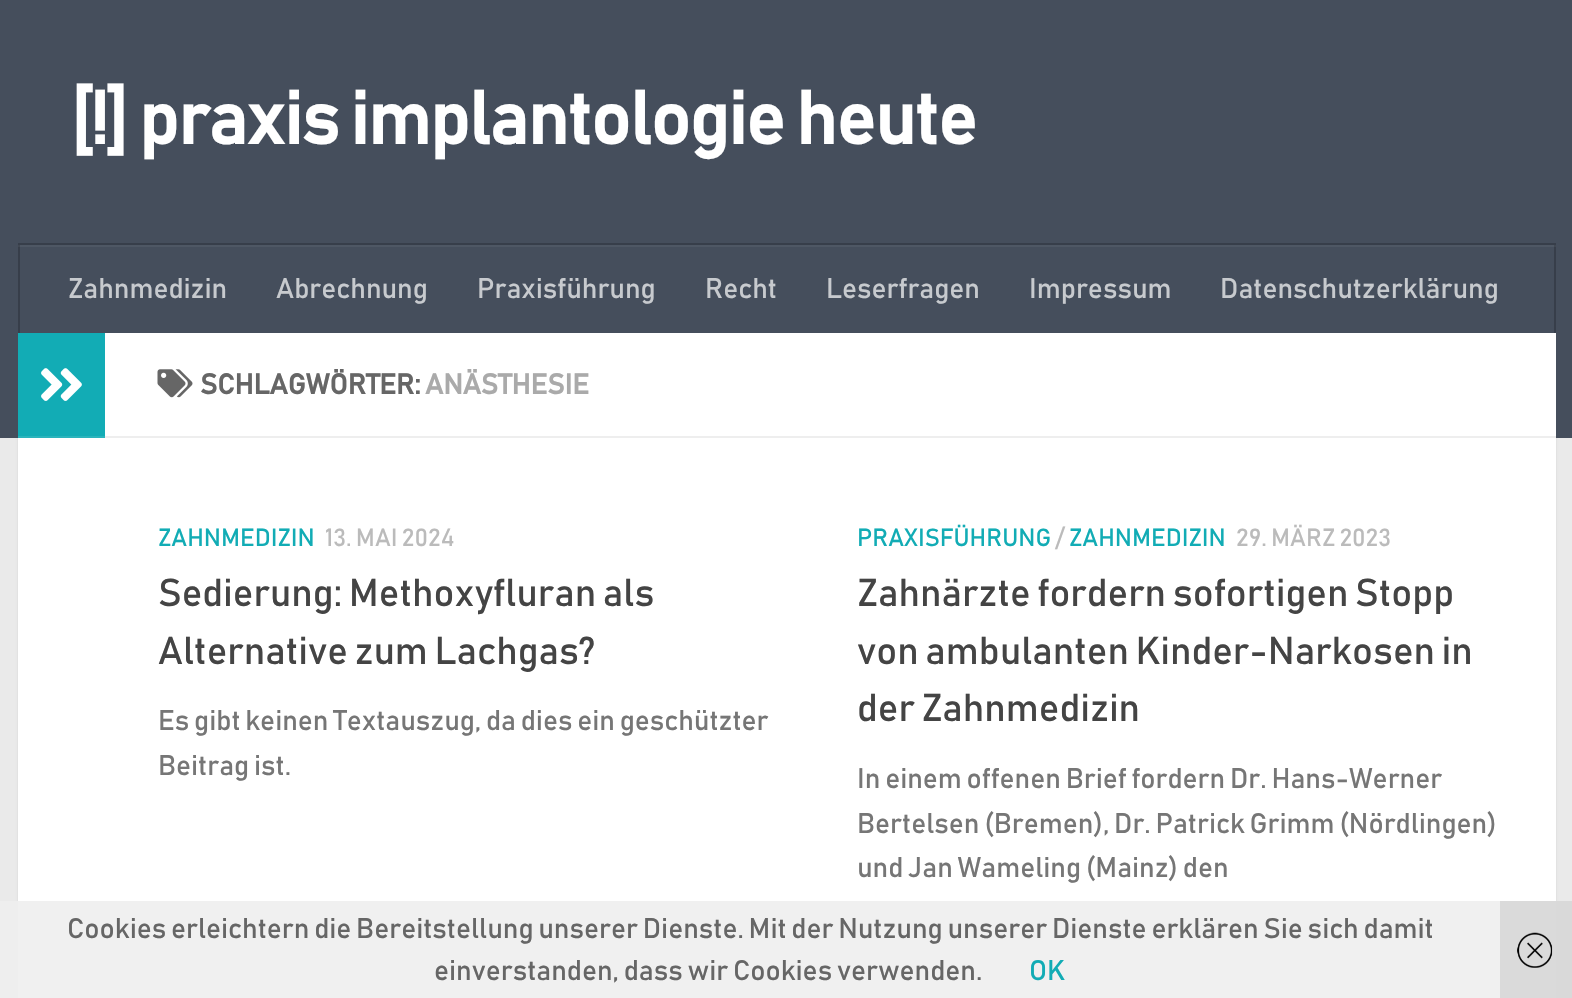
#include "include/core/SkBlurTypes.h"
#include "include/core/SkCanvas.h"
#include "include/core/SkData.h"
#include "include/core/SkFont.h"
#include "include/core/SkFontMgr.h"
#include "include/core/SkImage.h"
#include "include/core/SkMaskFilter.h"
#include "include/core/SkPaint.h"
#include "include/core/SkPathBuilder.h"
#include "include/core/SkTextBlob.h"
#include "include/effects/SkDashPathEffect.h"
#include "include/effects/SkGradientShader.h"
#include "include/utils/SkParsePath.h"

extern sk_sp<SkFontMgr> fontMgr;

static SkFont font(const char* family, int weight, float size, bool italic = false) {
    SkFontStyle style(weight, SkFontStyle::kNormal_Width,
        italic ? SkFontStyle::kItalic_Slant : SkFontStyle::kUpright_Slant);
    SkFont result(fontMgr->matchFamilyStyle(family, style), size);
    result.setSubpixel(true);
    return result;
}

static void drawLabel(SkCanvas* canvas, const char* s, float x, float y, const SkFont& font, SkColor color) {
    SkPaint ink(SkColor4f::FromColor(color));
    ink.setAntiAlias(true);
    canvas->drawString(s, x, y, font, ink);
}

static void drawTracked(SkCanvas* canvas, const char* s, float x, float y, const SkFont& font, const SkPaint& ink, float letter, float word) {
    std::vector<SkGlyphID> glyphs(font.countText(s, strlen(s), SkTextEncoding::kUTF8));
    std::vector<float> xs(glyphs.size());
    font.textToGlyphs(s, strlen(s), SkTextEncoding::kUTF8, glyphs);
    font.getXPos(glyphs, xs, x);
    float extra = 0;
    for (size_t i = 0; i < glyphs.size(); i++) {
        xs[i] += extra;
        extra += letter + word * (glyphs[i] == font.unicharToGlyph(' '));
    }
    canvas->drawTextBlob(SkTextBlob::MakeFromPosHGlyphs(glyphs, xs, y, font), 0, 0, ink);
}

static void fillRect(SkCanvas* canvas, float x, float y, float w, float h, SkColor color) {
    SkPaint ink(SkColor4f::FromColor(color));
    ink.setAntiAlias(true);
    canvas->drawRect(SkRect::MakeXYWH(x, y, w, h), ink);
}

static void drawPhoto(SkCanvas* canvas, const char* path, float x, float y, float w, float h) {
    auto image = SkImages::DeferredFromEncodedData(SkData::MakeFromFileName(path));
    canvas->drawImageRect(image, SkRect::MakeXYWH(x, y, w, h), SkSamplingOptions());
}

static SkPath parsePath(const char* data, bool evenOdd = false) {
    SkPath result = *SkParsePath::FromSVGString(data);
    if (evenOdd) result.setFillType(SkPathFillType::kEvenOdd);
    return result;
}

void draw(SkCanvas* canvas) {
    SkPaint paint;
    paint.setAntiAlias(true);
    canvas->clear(0xFFEAEAEA);
    paint.setColor(0x1A000000);
    paint.setMaskFilter(SkMaskFilter::MakeBlur(kNormal_SkBlurStyle, 1));
    canvas->drawRect(SkRect::MakeXYWH(18, 334, 1538, 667), paint);
    paint.setMaskFilter(nullptr);
    fillRect(canvas, 0, 0, 1572, 438, 0xFF454E5C);
    fillRect(canvas, 18, 245, 1538, 2, 0xFF4E5764);
    SkFont font1 = font("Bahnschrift", 700, 73.5f);
    paint.setColor(0xFFFFFFFF);
    drawTracked(canvas, "[!] praxis implantologie heute", 70, 144, font1, paint, -0.9f, 0);
    paint.setColor(0xFF373E4A);
    canvas->drawPath(parsePath("M18 243V245H1556V331V243Z"), paint);
    fillRect(canvas, 1554, 245, 2, 88, 0xFF373E4A);
    fillRect(canvas, 1554, 245, 2, 2, 0xFF414853);
    fillRect(canvas, 18, 245, 2, 88, 0xFF373E4A);
    fillRect(canvas, 18, 245, 2, 2, 0xFF414853);
    SkFont font2 = font("Bahnschrift", 400, 28);
    drawLabel(canvas, "Zahnmedizin", 68, 298, font2, 0xFFC7CACE);
    drawLabel(canvas, "Abrechnung", 276, 298, font2, 0xFFC7CACE);
    drawLabel(canvas, "Praxisführung", 477, 298, font2, 0xFFC7CACE);
    drawLabel(canvas, "Recht", 705, 298, font2, 0xFFC7CACE);
    drawLabel(canvas, "Leserfragen", 826, 298, font2, 0xFFC7CACE);
    drawLabel(canvas, "Impressum", 1029, 298, font2, 0xFFC7CACE);
    drawLabel(canvas, "Datenschutzerklärung", 1220, 298, font2, 0xFFC7CACE);
    fillRect(canvas, 18, 333, 1538, 665, 0xFFFFFFFF);
    fillRect(canvas, 18, 333, 87, 103, 0xFF12ACB5);
    fillRect(canvas, 18, 436, 87, 2, 0xFF2AB4BC);
    drawPhoto(canvas, "assets/img1.png", 41, 368, 41, 33);
    fillRect(canvas, 105, 436, 1451, 2, 0xFFEEEEEE);
    drawPhoto(canvas, "assets/img2.png", 157, 369, 36, 29);
    SkFont font3 = font("Bahnschrift", 700, 28);
    drawLabel(canvas, "SCHLAGWÖRTER:", 200, 394, font3, 0xFF666666);
    drawLabel(canvas, "ANÄSTHESIE", 425, 394, font3, 0xFFAAAAAA);
    SkFont font4 = font("Bahnschrift", 400, 24.5f);
    drawLabel(canvas, "ZAHNMEDIZIN", 158, 546, font4, 0xFF12ACB5);
    drawLabel(canvas, "13. MAI 2024", 325, 546, font4, 0xFFBBBBBB);
    SkFont font5 = font("Bahnschrift", 400, 38.5f);
    drawLabel(canvas, "Sedierung: Methoxyfluran als", 158, 606, font5, 0xFF444444);
    drawLabel(canvas, "Alternative zum Lachgas?", 158, 664, font5, 0xFF444444);
    drawLabel(canvas, "Es gibt keinen Textauszug, da dies ein geschützter", 158, 730, font2, 0xFF767676);
    drawLabel(canvas, "Beitrag ist.", 158, 775, font2, 0xFF767676);
    drawLabel(canvas, "PRAXISFÜHRUNG", 857, 546, font4, 0xFF12ACB5);
    drawLabel(canvas, "/", 1055, 546, font4, 0xFFBBBBBB);
    drawLabel(canvas, "ZAHNMEDIZIN", 1069, 546, font4, 0xFF12ACB5);
    drawLabel(canvas, "29. MÄRZ 2023", 1236, 546, font4, 0xFFBBBBBB);
    drawLabel(canvas, "Zahnärzte fordern sofortigen Stopp", 857, 606, font5, 0xFF444444);
    drawLabel(canvas, "von ambulanten Kinder-Narkosen in", 857, 664, font5, 0xFF444444);
    drawLabel(canvas, "der Zahnmedizin", 857, 721, font5, 0xFF444444);
    drawLabel(canvas, "In einem offenen Brief fordern Dr. Hans-Werner", 857, 788, font2, 0xFF767676);
    drawLabel(canvas, "Bertelsen (Bremen), Dr. Patrick Grimm (Nördlingen)", 857, 833, font2, 0xFF767676);
    drawLabel(canvas, "und Jan Wameling (Mainz) den", 857, 877, font2, 0xFF767676);
    fillRect(canvas, 0, 901, 1572, 97, 0xE6EEEEEE);
    drawLabel(canvas, "Cookies erleichtern die Bereitstellung unserer Dienste. Mit der Nutzung unserer Dienste erklären Sie sich damit", 67, 938, font2, 0xFF666666);
    drawLabel(canvas, "einverstanden, dass wir Cookies verwenden.", 434, 980, font2, 0xFF666666);
    drawLabel(canvas, "OK", 1029, 980, font2, 0xFF12ACB5);
    fillRect(canvas, 1500, 901, 72, 97, 0x99CCCCCC);
    drawPhoto(canvas, "assets/img3.png", 1517, 932, 36, 36);
}
